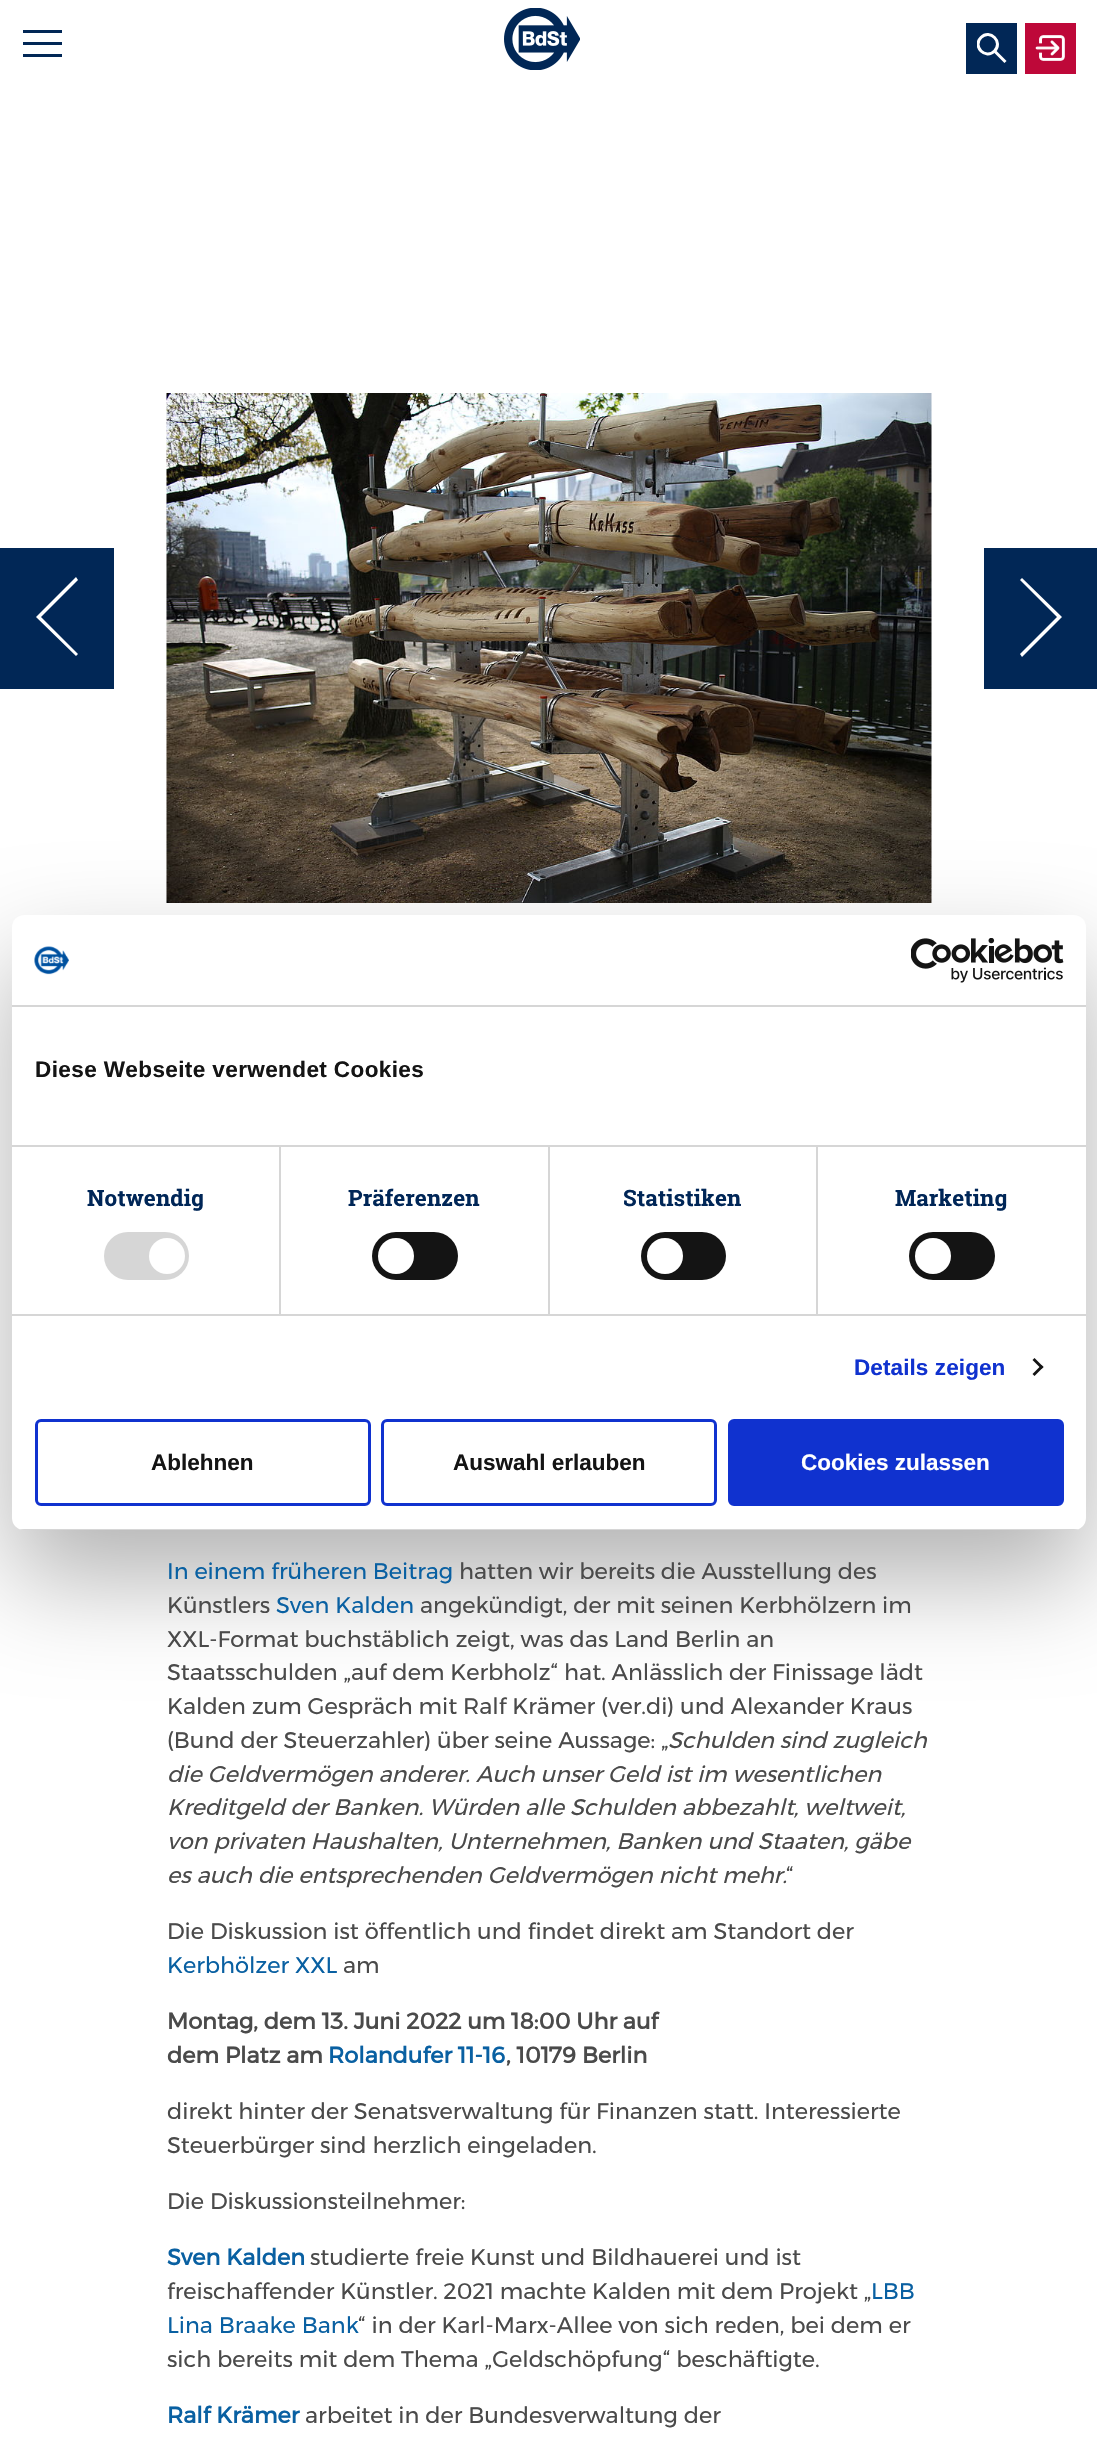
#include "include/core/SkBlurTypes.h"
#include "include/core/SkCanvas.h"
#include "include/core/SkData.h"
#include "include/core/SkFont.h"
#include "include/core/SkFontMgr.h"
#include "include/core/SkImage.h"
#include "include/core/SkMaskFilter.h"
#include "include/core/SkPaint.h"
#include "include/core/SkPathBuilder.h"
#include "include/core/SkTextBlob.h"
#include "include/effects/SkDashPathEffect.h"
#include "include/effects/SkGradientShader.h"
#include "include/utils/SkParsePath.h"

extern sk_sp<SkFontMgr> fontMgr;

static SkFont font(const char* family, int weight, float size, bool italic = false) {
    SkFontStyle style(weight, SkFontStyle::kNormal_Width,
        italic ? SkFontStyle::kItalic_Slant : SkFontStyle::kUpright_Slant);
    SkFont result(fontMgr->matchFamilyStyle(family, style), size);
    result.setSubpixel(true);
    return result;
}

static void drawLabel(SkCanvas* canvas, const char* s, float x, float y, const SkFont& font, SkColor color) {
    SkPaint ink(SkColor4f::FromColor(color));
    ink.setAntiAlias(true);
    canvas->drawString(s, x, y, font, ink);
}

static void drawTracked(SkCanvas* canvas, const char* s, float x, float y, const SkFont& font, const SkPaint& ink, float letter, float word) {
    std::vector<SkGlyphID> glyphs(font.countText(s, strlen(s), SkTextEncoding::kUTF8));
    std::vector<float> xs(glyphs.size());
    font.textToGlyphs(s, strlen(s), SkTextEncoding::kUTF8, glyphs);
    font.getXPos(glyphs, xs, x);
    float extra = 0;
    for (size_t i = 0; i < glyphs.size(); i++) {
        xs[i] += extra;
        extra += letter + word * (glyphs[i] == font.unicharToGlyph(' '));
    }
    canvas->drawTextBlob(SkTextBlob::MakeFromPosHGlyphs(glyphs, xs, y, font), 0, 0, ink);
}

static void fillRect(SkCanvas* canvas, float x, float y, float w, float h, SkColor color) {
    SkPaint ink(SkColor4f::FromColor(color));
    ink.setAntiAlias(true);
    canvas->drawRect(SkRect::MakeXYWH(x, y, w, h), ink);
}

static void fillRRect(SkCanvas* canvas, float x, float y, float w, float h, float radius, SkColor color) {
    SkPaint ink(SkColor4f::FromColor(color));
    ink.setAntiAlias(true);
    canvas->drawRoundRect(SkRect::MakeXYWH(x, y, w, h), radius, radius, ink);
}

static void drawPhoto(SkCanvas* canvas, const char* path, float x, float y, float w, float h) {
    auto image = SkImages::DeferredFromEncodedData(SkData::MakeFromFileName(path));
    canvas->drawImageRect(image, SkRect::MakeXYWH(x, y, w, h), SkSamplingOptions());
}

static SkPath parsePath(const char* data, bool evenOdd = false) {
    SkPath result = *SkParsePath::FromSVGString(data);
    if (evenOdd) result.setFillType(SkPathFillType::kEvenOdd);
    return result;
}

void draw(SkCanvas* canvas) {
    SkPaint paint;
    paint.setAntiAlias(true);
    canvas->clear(0xFFFFFFFF);
    fillRect(canvas, 23, 30, 39, 3, 0xFF012756);
    fillRect(canvas, 23, 42, 39, 3, 0xFF012756);
    fillRect(canvas, 23, 54, 39, 3, 0xFF012756);
    drawPhoto(canvas, "assets/img1.png", 504, 8, 76, 62);
    fillRect(canvas, 966, 23, 51, 51, 0xFF012756);
    canvas->save();
    canvas->clipRect(SkRect::MakeXYWH(977, 0, 30, 138));
    paint.setStroke(true);
    paint.setStrokeWidth(3);
    paint.setColor(0xFFFFFFFF);
    canvas->drawPath(parsePath("M981 37.5C990 28.5 1003.5 42 994.5 51C985.5 60 972 46.5 981 37.5Z"), paint);
    canvas->restore();
    canvas->drawPath(parsePath("M994.5 51L1005.5 62"), paint);
    fillRect(canvas, 1025, 23, 51, 51, 0xFFBE0839);
    drawPhoto(canvas, "assets/img2.png", 1035, 35, 30, 26);
    drawPhoto(canvas, "assets/img5.png", 166, 393, 766, 510);
    paint.setStroke(false);
    paint.setColor(0x4D000000);
    paint.setMaskFilter(SkMaskFilter::MakeBlur(kNormal_SkBlurStyle, 51));
    canvas->drawRoundRect(SkRect::MakeXYWH(12, 963, 1074, 615), 12, 12, paint);
    paint.setMaskFilter(nullptr);
    fillRRect(canvas, 12, 915, 1074, 615, 12, 0xFFFFFFFF);
    fillRect(canvas, 12, 1005, 1074, 2, 0xFFD6D6D6);
    drawPhoto(canvas, "assets/img3.png", 34, 946, 35, 29);
    drawPhoto(canvas, "assets/img4.png", 911, 938, 153, 45);
    fillRect(canvas, 279, 1146, 2, 168, 0xFFD6D6D6);
    fillRect(canvas, 548, 1146, 2, 168, 0xFFD6D6D6);
    fillRect(canvas, 816, 1146, 2, 168, 0xFFD6D6D6);
    fillRect(canvas, 12, 1145, 1074, 2, 0xFFD6D6D6);
    SkFont font1 = font("Liberation Sans", 700, 22.5f);
    paint.setColor(0xFF141414);
    drawTracked(canvas, "Diese Webseite verwendet Cookies", 35, 1077, font1, paint, 0.4f, 0);
    fillRect(canvas, 12, 1314, 1074, 2, 0xFFD6D6D6);
    SkFont font2 = font("Roboto Slab", 700, 22.5f);
    paint.setColor(0xFF002657);
    drawTracked(canvas, "Notwendig", 87, 1206, font2, paint, 0.1f, 0);
    fillRRect(canvas, 104, 1232, 85, 48, 24, 0xFFD6D6D6);
    paint.setColor(0xFFFFFFFF);
    canvas->drawCircle(167, 1256, 18, paint);
    paint.setColor(0xFF002657);
    drawTracked(canvas, "Präferenzen", 348, 1206, font2, paint, 0.1f, 0);
    fillRRect(canvas, 372, 1232, 86, 48, 24, 0xFF141414);
    paint.setColor(0xFFFFFFFF);
    canvas->drawCircle(396, 1256, 18, paint);
    paint.setColor(0xFF002657);
    drawTracked(canvas, "Statistiken", 623, 1206, font2, paint, 0.1f, 0);
    fillRRect(canvas, 641, 1232, 85, 48, 24, 0xFF141414);
    paint.setColor(0xFFFFFFFF);
    canvas->drawCircle(665, 1256, 18, paint);
    paint.setColor(0xFF002657);
    drawTracked(canvas, "Marketing", 895, 1206, font2, paint, 0.1f, 0);
    fillRRect(canvas, 909, 1232, 86, 48, 24, 0xFF141414);
    paint.setColor(0xFFFFFFFF);
    canvas->drawCircle(933, 1256, 18, paint);
    paint.setColor(0xFF1032CF);
    drawTracked(canvas, "Details zeigen", 854, 1375, font1, paint, 0.1f, 0);
    paint.setColor(0xFF141414);
    canvas->drawPath(parsePath("M1034.5 1358L1043.5 1367L1041.5 1369L1032.5 1360Z"), paint);
    canvas->drawPath(parsePath("M1041.5 1365L1043.5 1367L1034.5 1376L1032.5 1374Z"), paint);
    canvas->save();
    canvas->clipPath(parsePath("M24 915H1074C1080.5 915 1086 920.5 1086 927V1518C1086 1524.5 1080.5 1530 1074 1530H24C17.5 1530 12 1524.5 12 1518V927C12 920.5 17.5 915 24 915Z"), true);
    fillRect(canvas, 12, 1529, 1074, 1, 0xFFD6D6D6);
    canvas->restore();
    paint.setStroke(true);
    paint.setColor(0xFF1032CF);
    canvas->drawRoundRect(SkRect::MakeXYWH(36.5f, 1420.5f, 333, 84), 4.5f, 4.5f, paint);
    drawLabel(canvas, "Ablehnen", 151, 1470, font1, 0xFF141414);
    canvas->drawRoundRect(SkRect::MakeXYWH(382.5f, 1420.5f, 333, 84), 4.5f, 4.5f, paint);
    drawLabel(canvas, "Auswahl erlauben", 453, 1470, font1, 0xFF141414);
    paint.setStroke(false);
    canvas->drawRoundRect(SkRect::MakeXYWH(729.5f, 1420.5f, 333, 84), 4.5f, 4.5f, paint);
    paint.setStroke(true);
    canvas->drawRoundRect(SkRect::MakeXYWH(729.5f, 1420.5f, 333, 84), 4.5f, 4.5f, paint);
    drawLabel(canvas, "Cookies zulassen", 801, 1470, font1, 0xFFFFFFFF);
    fillRect(canvas, 0, 548, 114, 141, 0xFF012756);
    paint.setStroke(false);
    paint.setColor(0xFFFFFFFF);
    canvas->drawPath(parsePath("M76 577L78 580L41 617L78 654L76 656L36 617Z"), paint);
    fillRect(canvas, 984, 548, 113, 141, 0xFF012756);
    canvas->drawPath(parsePath("M1022 657L1020 654L1057 617L1020 580L1022 578L1062 617Z"), paint);
    SkFont font3 = font("Montserrat", 400, 22.5f);
    drawLabel(canvas, "In einem früheren Beitrag", 167, 1579, font3, 0xFF0960A2);
    drawLabel(canvas, "hatten wir bereits die Ausstellung des", 459, 1579, font3, 0xFF4A4A4A);
    drawLabel(canvas, "Künstlers", 167, 1613, font3, 0xFF4A4A4A);
    drawLabel(canvas, "Sven Kalden", 276, 1613, font3, 0xFF0960A2);
    drawLabel(canvas, "angekündigt, der mit seinen Kerbhölzern im", 420, 1613, font3, 0xFF4A4A4A);
    drawLabel(canvas, "XXL-Format buchstäblich zeigt, was das Land Berlin an", 167, 1647, font3, 0xFF4A4A4A);
    drawLabel(canvas, "Staatsschulden „auf dem Kerbholz“ hat. Anlässlich der Finissage lädt", 167, 1680, font3, 0xFF4A4A4A);
    drawLabel(canvas, "Kalden zum Gespräch mit Ralf Krämer (ver.di) und Alexander Kraus", 167, 1714, font3, 0xFF4A4A4A);
    drawLabel(canvas, "(Bund der Steuerzahler) über seine Aussage: „", 167, 1748, font3, 0xFF4A4A4A);
    SkFont font4 = font("Montserrat", 400, 22.5f, true);
    drawLabel(canvas, "Schulden sind zugleich", 668, 1748, font4, 0xFF4A4A4A);
    drawLabel(canvas, "die Geldvermögen anderer. Auch unser Geld ist im wesentlichen", 167, 1782, font4, 0xFF4A4A4A);
    drawLabel(canvas, "Kreditgeld der Banken. Würden alle Schulden abbezahlt, weltweit,", 167, 1815, font4, 0xFF4A4A4A);
    drawLabel(canvas, "von privaten Haushalten, Unternehmen, Banken und Staaten, gäbe", 167, 1849, font4, 0xFF4A4A4A);
    drawLabel(canvas, "es auch die entsprechenden Geldvermögen nicht mehr.", 167, 1883, font4, 0xFF4A4A4A);
    drawLabel(canvas, "“", 786, 1883, font3, 0xFF4A4A4A);
    drawLabel(canvas, "Die Diskussion ist öffentlich und findet direkt am Standort der", 167, 1939, font3, 0xFF4A4A4A);
    drawLabel(canvas, "Kerbhölzer XXL", 167, 1973, font3, 0xFF0960A2);
    drawLabel(canvas, "am", 343, 1973, font3, 0xFF4A4A4A);
    SkFont font5 = font("Montserrat", 700, 22.5f);
    drawLabel(canvas, "Montag, dem 13. Juni 2022 um 18:00 Uhr auf", 167, 2029, font5, 0xFF4A4A4A);
    drawLabel(canvas, "dem Platz am", 167, 2063, font5, 0xFF4A4A4A);
    drawLabel(canvas, "Rolandufer 11-16", 328, 2063, font5, 0xFF0960A2);
    drawLabel(canvas, ", 10179 Berlin", 506, 2063, font5, 0xFF4A4A4A);
    drawLabel(canvas, "direkt hinter der Senatsverwaltung für Finanzen statt. Interessierte", 167, 2119, font3, 0xFF4A4A4A);
    drawLabel(canvas, "Steuerbürger sind herzlich eingeladen.", 167, 2153, font3, 0xFF4A4A4A);
    drawLabel(canvas, "Die Diskussionsteilnehmer:", 167, 2209, font3, 0xFF4A4A4A);
    drawLabel(canvas, "Sven Kalden", 167, 2265, font5, 0xFF0960A2);
    drawLabel(canvas, "studierte freie Kunst und Bildhauerei und ist", 310, 2265, font3, 0xFF4A4A4A);
    drawLabel(canvas, "freischaffender Künstler. 2021 machte Kalden mit dem Projekt „", 167, 2299, font3, 0xFF4A4A4A);
    drawLabel(canvas, "LBB", 871, 2299, font3, 0xFF0960A2);
    drawLabel(canvas, "Lina Braake Bank", 167, 2333, font3, 0xFF0960A2);
    drawLabel(canvas, "“ in der Karl-Marx-Allee von sich reden, bei dem er", 358, 2333, font3, 0xFF4A4A4A);
    drawLabel(canvas, "sich bereits mit dem Thema „Geldschöpfung“ beschäftigte.", 167, 2367, font3, 0xFF4A4A4A);
    drawLabel(canvas, "Ralf Krämer", 167, 2423, font5, 0xFF0960A2);
    drawLabel(canvas, "arbeitet in der Bundesverwaltung der", 305, 2423, font3, 0xFF4A4A4A);
}
